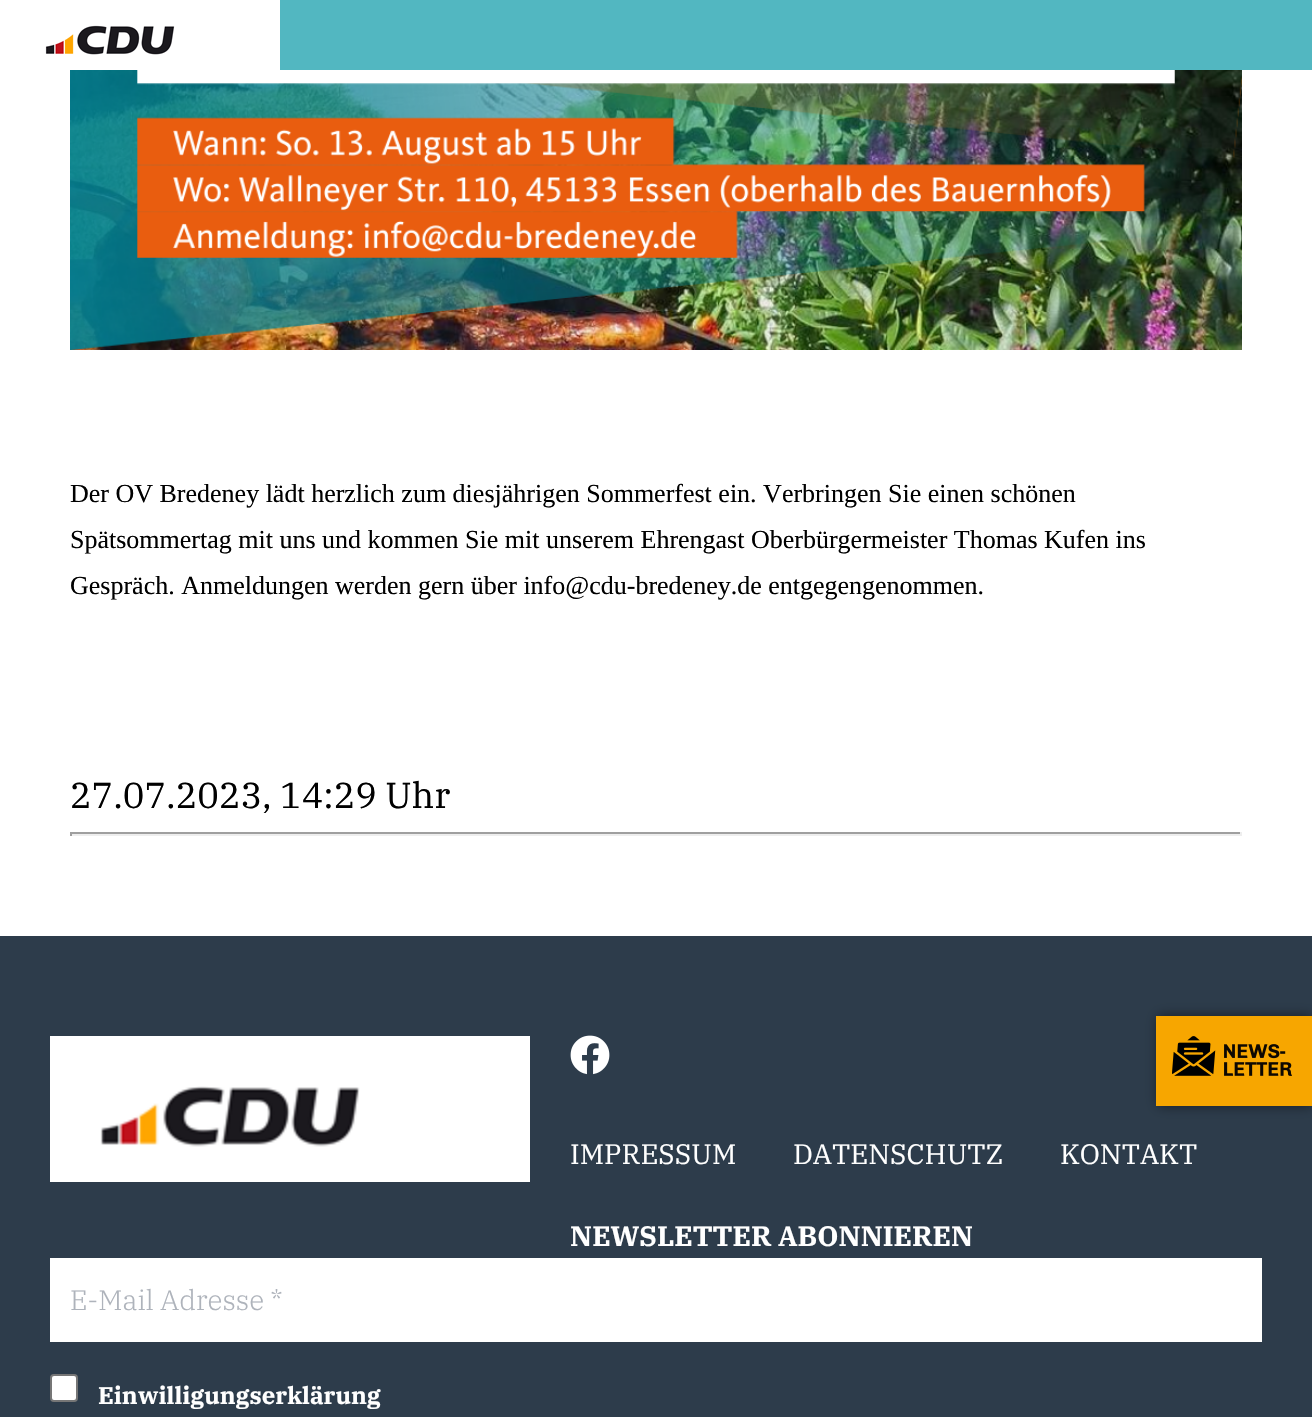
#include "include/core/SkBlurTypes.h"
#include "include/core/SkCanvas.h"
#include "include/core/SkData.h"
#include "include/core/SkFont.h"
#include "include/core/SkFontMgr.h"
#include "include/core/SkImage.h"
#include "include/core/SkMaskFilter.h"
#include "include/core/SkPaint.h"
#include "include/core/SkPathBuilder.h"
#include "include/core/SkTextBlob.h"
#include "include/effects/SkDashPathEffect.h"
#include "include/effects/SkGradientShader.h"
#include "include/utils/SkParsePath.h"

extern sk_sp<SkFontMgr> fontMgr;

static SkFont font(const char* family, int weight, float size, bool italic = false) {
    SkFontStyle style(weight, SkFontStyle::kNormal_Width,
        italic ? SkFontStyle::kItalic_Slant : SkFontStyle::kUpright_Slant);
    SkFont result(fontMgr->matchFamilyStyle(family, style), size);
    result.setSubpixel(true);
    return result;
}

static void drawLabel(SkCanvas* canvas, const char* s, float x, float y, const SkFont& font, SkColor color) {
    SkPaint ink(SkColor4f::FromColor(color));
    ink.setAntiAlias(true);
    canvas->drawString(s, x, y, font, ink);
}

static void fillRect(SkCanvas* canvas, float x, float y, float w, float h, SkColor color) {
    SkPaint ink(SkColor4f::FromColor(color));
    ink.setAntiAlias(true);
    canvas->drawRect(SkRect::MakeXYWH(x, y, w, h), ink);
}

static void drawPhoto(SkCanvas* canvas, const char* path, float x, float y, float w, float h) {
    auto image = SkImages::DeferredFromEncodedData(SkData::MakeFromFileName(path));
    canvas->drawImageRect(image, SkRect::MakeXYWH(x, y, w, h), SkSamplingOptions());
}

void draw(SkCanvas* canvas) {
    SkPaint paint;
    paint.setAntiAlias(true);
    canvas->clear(0xFFFFFFFF);
    drawPhoto(canvas, "assets/img1.png", 45, 25, 130, 30);
    fillRect(canvas, 280, 0, 1032, 70, 0xFF52B7C1);
    drawPhoto(canvas, "assets/img2.png", 70, 70, 1172, 280);
    SkFont font1 = font("Liberation Serif", 400, 26);
    drawLabel(canvas, "Der OV Bredeney lädt herzlich zum diesjährigen Sommerfest ein. Verbringen Sie einen schönen", 70, 502, font1, 0xFF000000);
    drawLabel(canvas, "Spätsommertag mit uns und kommen Sie mit unserem Ehrengast Oberbürgermeister Thomas Kufen ins", 70, 548, font1, 0xFF000000);
    drawLabel(canvas, "Gespräch. Anmeldungen werden gern über info@cdu-bredeney.de entgegengenommen.", 70, 594, font1, 0xFF000000);
    SkFont font2 = font("IBM Plex Serif", 400, 36);
    drawLabel(canvas, "27.07.2023, 14:29 Uhr", 70, 808, font2, 0xFF000000);
    fillRect(canvas, 70, 832, 1172, 2, 0xFF9F9F9F);
    fillRect(canvas, 1240, 832, 2, 4, 0xFFEEEEEE);
    fillRect(canvas, 70, 834, 1172, 2, 0xFFEEEEEE);
    fillRect(canvas, 70, 832, 2, 4, 0xFF9F9F9F);
    fillRect(canvas, 0, 936, 1312, 481, 0xFF2D3C4B);
    paint.setColor(0x80000000);
    paint.setMaskFilter(SkMaskFilter::MakeBlur(kNormal_SkBlurStyle, 6));
    canvas->drawRect(SkRect::MakeXYWH(1158, 1016, 154, 90), paint);
    paint.setMaskFilter(nullptr);
    fillRect(canvas, 1156, 1016, 156, 90, 0xFFF7A600);
    drawPhoto(canvas, "assets/img3.png", 1172, 1036, 120, 40);
    fillRect(canvas, 50, 1036, 480, 146, 0xFFFFFFFF);
    drawPhoto(canvas, "assets/img4.png", 100, 1086, 260, 61);
    drawPhoto(canvas, "assets/img5.png", 570, 1035, 40, 40);
    SkFont font3 = font("IBM Plex Serif", 400, 28);
    drawLabel(canvas, "IMPRESSUM", 570, 1164, font3, 0xFFFFFFFF);
    drawLabel(canvas, "DATENSCHUTZ", 793, 1164, font3, 0xFFFFFFFF);
    drawLabel(canvas, "KONTAKT", 1060, 1164, font3, 0xFFFFFFFF);
    SkFont font4 = font("IBM Plex Serif", 700, 28);
    drawLabel(canvas, "NEWSLETTER ABONNIEREN", 570, 1246, font4, 0xFFFFFFFF);
    fillRect(canvas, 50, 1258, 1212, 84, 0xFFFFFFFF);
    SkFont font5 = font("IBM Plex Serif", 300, 28);
    drawLabel(canvas, "E-Mail Adresse *", 70, 1310, font5, 0xFFAEB3BB);
    paint.setColor(0xFFFFFFFF);
    canvas->drawRoundRect(SkRect::MakeXYWH(51, 1375, 26, 26), 3, 3, paint);
    paint.setStroke(true);
    paint.setStrokeWidth(2);
    paint.setColor(0xFF767676);
    canvas->drawRoundRect(SkRect::MakeXYWH(51, 1375, 26, 26), 3, 3, paint);
    SkFont font6 = font("IBM Plex Serif", 700, 24);
    drawLabel(canvas, "Einwilligungserklärung", 98, 1404, font6, 0xFFFFFFFF);
}
